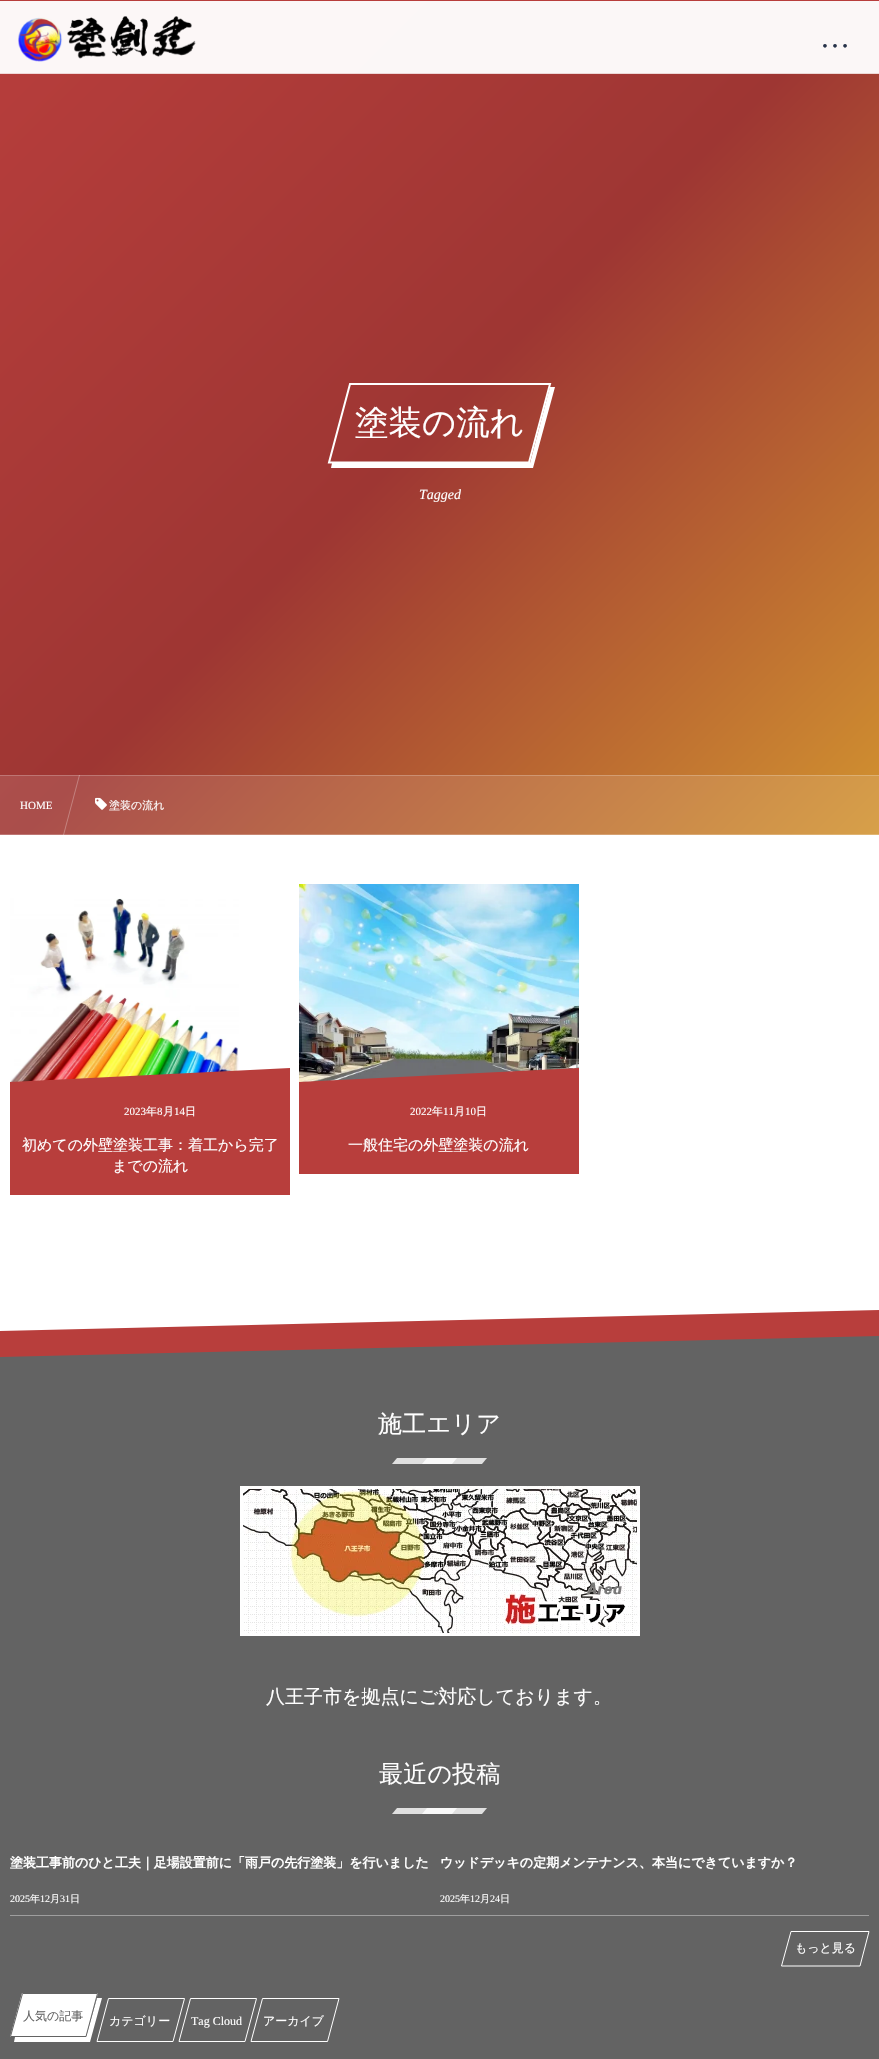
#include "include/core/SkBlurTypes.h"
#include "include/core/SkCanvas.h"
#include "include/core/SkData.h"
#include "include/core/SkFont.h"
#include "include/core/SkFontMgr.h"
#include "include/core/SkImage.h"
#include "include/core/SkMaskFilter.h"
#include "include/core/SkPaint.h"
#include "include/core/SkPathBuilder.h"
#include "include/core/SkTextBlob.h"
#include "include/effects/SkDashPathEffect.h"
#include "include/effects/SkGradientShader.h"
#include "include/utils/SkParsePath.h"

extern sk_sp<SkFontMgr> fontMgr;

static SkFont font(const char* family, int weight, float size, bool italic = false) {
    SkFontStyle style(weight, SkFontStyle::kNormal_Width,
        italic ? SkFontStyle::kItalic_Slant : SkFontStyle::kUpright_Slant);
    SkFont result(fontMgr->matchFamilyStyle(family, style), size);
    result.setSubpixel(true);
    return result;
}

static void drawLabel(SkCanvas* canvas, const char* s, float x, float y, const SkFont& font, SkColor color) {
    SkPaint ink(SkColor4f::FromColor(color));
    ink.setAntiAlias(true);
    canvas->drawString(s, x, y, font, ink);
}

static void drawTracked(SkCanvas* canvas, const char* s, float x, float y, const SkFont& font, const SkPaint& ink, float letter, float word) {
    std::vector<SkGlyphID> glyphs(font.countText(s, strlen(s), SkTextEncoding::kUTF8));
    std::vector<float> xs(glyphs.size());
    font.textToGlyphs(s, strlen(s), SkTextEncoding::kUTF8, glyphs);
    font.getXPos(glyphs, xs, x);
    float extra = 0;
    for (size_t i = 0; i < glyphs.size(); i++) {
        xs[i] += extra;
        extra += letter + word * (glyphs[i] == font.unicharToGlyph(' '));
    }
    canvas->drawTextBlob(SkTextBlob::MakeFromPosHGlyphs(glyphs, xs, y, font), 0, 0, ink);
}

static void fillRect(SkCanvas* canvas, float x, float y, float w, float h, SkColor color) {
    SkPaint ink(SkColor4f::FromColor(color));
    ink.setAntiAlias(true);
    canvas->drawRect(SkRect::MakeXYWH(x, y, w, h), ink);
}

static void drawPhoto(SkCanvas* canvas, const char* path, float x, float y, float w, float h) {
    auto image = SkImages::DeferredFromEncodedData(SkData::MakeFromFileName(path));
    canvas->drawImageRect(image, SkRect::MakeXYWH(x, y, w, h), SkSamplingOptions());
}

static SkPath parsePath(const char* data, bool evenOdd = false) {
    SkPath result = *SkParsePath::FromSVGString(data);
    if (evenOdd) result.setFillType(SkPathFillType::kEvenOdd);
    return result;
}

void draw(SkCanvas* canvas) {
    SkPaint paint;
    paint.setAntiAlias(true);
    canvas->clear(0xFFFFFFFF);
    fillRect(canvas, 0, 0, 879, 1, 0xFFB83E3C);
    {
        const SkColor colors[] = {0xFFFCF7F7, 0xFFFBF7F7, 0xFFFDFBF7};
        const float stops[] = {0, 0.5f, 1};
        const SkPoint ends[] = {{11, -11}, {868, 846}};
        paint.setShader(SkGradientShader::MakeLinear(ends, colors, stops, 3, SkTileMode::kClamp));
        paint.setAlpha(255);
    }
    canvas->drawRect(SkRect::MakeXYWH(0, 1, 879, 72), paint);
    drawPhoto(canvas, "assets/img1.png", 18, 16, 178, 46);
    SkFont font1 = font("Liberation Serif", 400, 30);
    drawLabel(canvas, "…", 820, 47, font1, 0xFF273349);
    {
        const SkColor colors[] = {0xFFB83E3C, 0xFF9E3633, 0xFFD29330};
        const float stops[] = {0, 0.5f, 1};
        const SkPoint ends[] = {{11, -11}, {868, 846}};
        paint.setShader(SkGradientShader::MakeLinear(ends, colors, stops, 3, SkTileMode::kClamp));
        paint.setAlpha(255);
    }
    canvas->drawRect(SkRect::MakeXYWH(0, 74, 879, 701), paint);
    {
        const SkColor colors[] = {0xFFF1D8D8, 0xFFECD7D6, 0xFFF6E9D6};
        const float stops[] = {0, 0.5f, 1};
        const SkPoint ends[] = {{11, -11}, {868, 846}};
        paint.setShader(SkGradientShader::MakeLinear(ends, colors, stops, 3, SkTileMode::kClamp));
        paint.setAlpha(255);
    }
    canvas->drawRect(SkRect::MakeXYWH(0, 73, 879, 1), paint);
    {
        const SkColor colors[] = {0xFFC15553, 0xFFAA4E4B, 0xFFD7A049};
        const float stops[] = {0, 0.5f, 1};
        const SkPoint ends[] = {{11, -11}, {868, 846}};
        paint.setShader(SkGradientShader::MakeLinear(ends, colors, stops, 3, SkTileMode::kClamp));
        paint.setAlpha(255);
    }
    canvas->drawRect(SkRect::MakeXYWH(0, 776, 879, 58), paint);
    {
        const SkColor colors[] = {0xFFCF7A79, 0xFFBD7573, 0xFFE0B571};
        const float stops[] = {0, 0.5f, 1};
        const SkPoint ends[] = {{11, -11}, {868, 846}};
        paint.setShader(SkGradientShader::MakeLinear(ends, colors, stops, 3, SkTileMode::kClamp));
        paint.setAlpha(255);
    }
    canvas->drawRect(SkRect::MakeXYWH(0, 834, 879, 1), paint);
    canvas->drawRect(SkRect::MakeXYWH(0, 775, 879, 1), paint);
    paint.setShader(nullptr);
    paint.setColor(0xFFFFFFFF);
    canvas->drawPath(parsePath("M332 463L331 468H533L555 387H550L530 463Z"), paint);
    paint.setStroke(true);
    paint.setStrokeWidth(2);
    canvas->drawPath(parsePath("M350 384H550L529 462.5H329Z"), paint);
    SkFont font2 = font("WenQuanYi Zen Hei", 500, 33.5f);
    drawLabel(canvas, "塗装の流れ", 355, 434, font2, 0xFFFFFFFF);
    SkFont font3 = font("Liberation Serif", 400, 14, true);
    drawLabel(canvas, "Tagged", 419, 499, font3, 0xFFFFFFFF);
    SkFont font4 = font("Liberation Serif", 400, 11);
    drawLabel(canvas, "HOME", 20, 809, font4, 0xFFFFFFFF);
    paint.setStroke(false);
    paint.setColor(0x47FFFFFF);
    canvas->drawPath(parsePath("M79 775H80L64 835H63Z"), paint);
    drawPhoto(canvas, "assets/img2.png", 95, 797, 12, 13);
    SkFont font5 = font("WenQuanYi Zen Hei", 500, 11);
    drawLabel(canvas, "塗装の流れ", 109, 809, font5, 0xFFFFFFFF);
    drawPhoto(canvas, "assets/img3.png", 10, 898, 229, 184);
    paint.setColor(0xFFB83E3C);
    canvas->drawPath(parsePath("M10 1082L290 1068V1108L10 1123Z"), paint);
    fillRect(canvas, 10, 1108, 280, 87, 0xFFB83E3C);
    drawLabel(canvas, "2023", 124, 1115, font4, 0xFFFFFFFF);
    drawLabel(canvas, "年", 146, 1115, font5, 0xFFFFFFFF);
    drawLabel(canvas, "8", 157, 1115, font4, 0xFFFFFFFF);
    drawLabel(canvas, "月", 163, 1115, font5, 0xFFFFFFFF);
    drawLabel(canvas, "14", 174, 1115, font4, 0xFFFFFFFF);
    drawLabel(canvas, "日", 185, 1115, font5, 0xFFFFFFFF);
    SkFont font6 = font("WenQuanYi Zen Hei", 500, 15);
    drawLabel(canvas, "初めての外壁塗装工事：着工から完了", 22, 1150, font6, 0xFFFFFFFF);
    drawLabel(canvas, "までの流れ", 112, 1171, font6, 0xFFFFFFFF);
    drawPhoto(canvas, "assets/img4.png", 299, 884, 280, 198);
    canvas->drawPath(parsePath("M299 1082L579 1068V1108L299 1123Z"), paint);
    fillRect(canvas, 299, 1108, 280, 66, 0xFFB83E3C);
    drawLabel(canvas, "2022", 410, 1115, font4, 0xFFFFFFFF);
    drawLabel(canvas, "年", 432, 1115, font5, 0xFFFFFFFF);
    drawLabel(canvas, "11", 443, 1115, font4, 0xFFFFFFFF);
    drawLabel(canvas, "月", 454, 1115, font5, 0xFFFFFFFF);
    drawLabel(canvas, "10", 465, 1115, font4, 0xFFFFFFFF);
    drawLabel(canvas, "日", 476, 1115, font5, 0xFFFFFFFF);
    drawLabel(canvas, "一般住宅の外壁塗装の流れ", 348, 1150, font6, 0xFFFFFFFF);
    fillRect(canvas, 0, 1336, 879, 723, 0xFF636363);
    canvas->drawPath(parsePath("M0 1331L879 1310V1336L0 1357Z"), paint);
    SkFont font7 = font("WenQuanYi Zen Hei", 500, 24);
    paint.setColor(0xFFFFFFFF);
    drawTracked(canvas, "施工エリア", 378, 1432, font7, paint, 0.25f, 0);
    paint.setColor(0xFFE0E0E0);
    canvas->drawPath(parsePath("M397 1458H457L452 1464H392Z"), paint);
    paint.setColor(0xCCFFFFFF);
    canvas->drawPath(parsePath("M427 1458H487L482 1464H422Z"), paint);
    drawPhoto(canvas, "assets/img5.png", 240, 1486, 400, 150);
    SkFont font8 = font("WenQuanYi Zen Hei", 500, 19);
    drawLabel(canvas, "八王子市を拠点にご対応しております。", 266, 1703, font8, 0xFFFFFFFF);
    paint.setColor(0xFFFFFFFF);
    drawTracked(canvas, "最近の投稿", 379, 1782, font7, paint, 0.25f, 0);
    paint.setColor(0xFFE0E0E0);
    canvas->drawPath(parsePath("M397 1808H457L452 1814H392Z"), paint);
    paint.setColor(0xCCFFFFFF);
    canvas->drawPath(parsePath("M427 1808H487L482 1814H422Z"), paint);
    fillRect(canvas, 10, 1915, 859, 1, 0xFF9E9E9E);
    SkFont font9 = font("WenQuanYi Zen Hei", 700, 13);
    drawLabel(canvas, "塗装工事前のひと工夫｜足場設置前に「雨戸の先行塗装」を行いました", 10, 1867, font9, 0xFFFFFFFF);
    SkFont font10 = font("Liberation Serif", 400, 10);
    drawLabel(canvas, "2025", 10, 1902, font10, 0xFFFFFFFF);
    SkFont font11 = font("WenQuanYi Zen Hei", 500, 10);
    drawLabel(canvas, "年", 30, 1902, font11, 0xFFFFFFFF);
    drawLabel(canvas, "12", 40, 1902, font10, 0xFFFFFFFF);
    drawLabel(canvas, "月", 50, 1902, font11, 0xFFFFFFFF);
    drawLabel(canvas, "31", 60, 1902, font10, 0xFFFFFFFF);
    drawLabel(canvas, "日", 70, 1902, font11, 0xFFFFFFFF);
    drawLabel(canvas, "ウッドデッキの定期メンテナンス、本当にできていますか？", 440, 1867, font9, 0xFFFFFFFF);
    drawLabel(canvas, "2025", 440, 1902, font10, 0xFFFFFFFF);
    drawLabel(canvas, "年", 460, 1902, font11, 0xFFFFFFFF);
    drawLabel(canvas, "12", 470, 1902, font10, 0xFFFFFFFF);
    drawLabel(canvas, "月", 480, 1902, font11, 0xFFFFFFFF);
    drawLabel(canvas, "24", 490, 1902, font10, 0xFFFFFFFF);
    drawLabel(canvas, "日", 500, 1902, font11, 0xFFFFFFFF);
    paint.setStroke(true);
    paint.setStrokeWidth(1);
    paint.setColor(0xFFFFFFFF);
    canvas->drawPath(parsePath("M791 1931.5H869L860 1966H781.5Z"), paint);
    SkFont font12 = font("WenQuanYi Zen Hei", 500, 12);
    drawLabel(canvas, "もっと見る", 795, 1952, font12, 0xFFFFFFFF);
    canvas->drawPath(parsePath("M108.5 1998.5H184.5L173 2041.5H97Z"), paint);
    paint.setStroke(false);
    canvas->drawPath(parsePath("M15 2037L14 2042H90L102 1998H97L86 2037Z"), paint);
    canvas->drawPath(parsePath("M22 1993H98L86 2037H10Z"), paint);
    paint.setStroke(true);
    paint.setColor(0xFF636363);
    canvas->drawPath(parsePath("M22.5 1993.5H97.5L86 2036.5H10.5Z"), paint);
    drawLabel(canvas, "人気の記事", 23, 2020, font12, 0xFF636363);
    drawLabel(canvas, "カテゴリー", 109, 2025, font12, 0xFFFFFFFF);
    paint.setColor(0xFFFFFFFF);
    canvas->drawPath(parsePath("M190.5 1998.5H256.5L245 2041.5H179Z"), paint);
    SkFont font13 = font("Liberation Serif", 400, 12);
    drawLabel(canvas, "Tag Cloud", 191, 2025, font13, 0xFFFFFFFF);
    canvas->drawPath(parsePath("M262.5 1998.5H339L327.5 2041.5H251Z"), paint);
    drawLabel(canvas, "アーカイブ", 263, 2025, font12, 0xFFFFFFFF);
}
